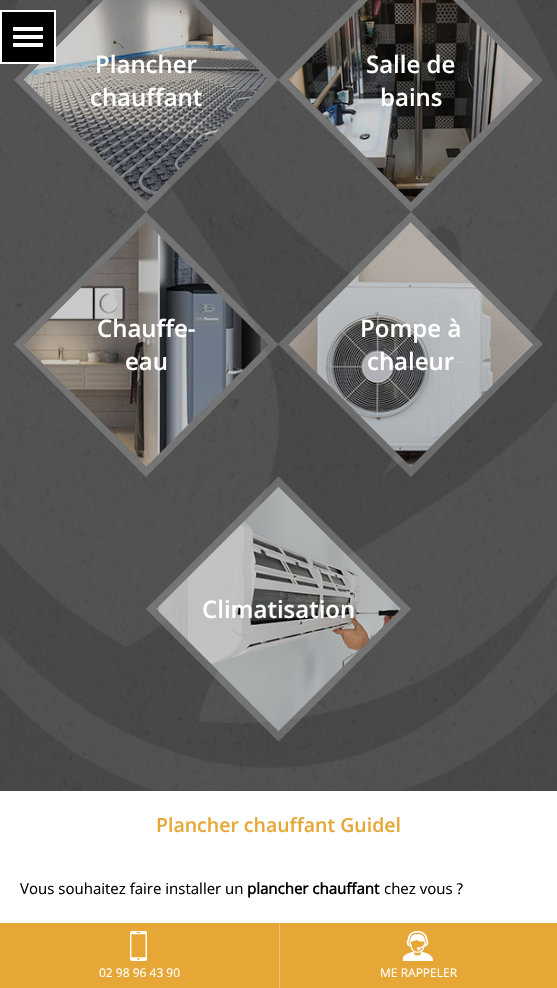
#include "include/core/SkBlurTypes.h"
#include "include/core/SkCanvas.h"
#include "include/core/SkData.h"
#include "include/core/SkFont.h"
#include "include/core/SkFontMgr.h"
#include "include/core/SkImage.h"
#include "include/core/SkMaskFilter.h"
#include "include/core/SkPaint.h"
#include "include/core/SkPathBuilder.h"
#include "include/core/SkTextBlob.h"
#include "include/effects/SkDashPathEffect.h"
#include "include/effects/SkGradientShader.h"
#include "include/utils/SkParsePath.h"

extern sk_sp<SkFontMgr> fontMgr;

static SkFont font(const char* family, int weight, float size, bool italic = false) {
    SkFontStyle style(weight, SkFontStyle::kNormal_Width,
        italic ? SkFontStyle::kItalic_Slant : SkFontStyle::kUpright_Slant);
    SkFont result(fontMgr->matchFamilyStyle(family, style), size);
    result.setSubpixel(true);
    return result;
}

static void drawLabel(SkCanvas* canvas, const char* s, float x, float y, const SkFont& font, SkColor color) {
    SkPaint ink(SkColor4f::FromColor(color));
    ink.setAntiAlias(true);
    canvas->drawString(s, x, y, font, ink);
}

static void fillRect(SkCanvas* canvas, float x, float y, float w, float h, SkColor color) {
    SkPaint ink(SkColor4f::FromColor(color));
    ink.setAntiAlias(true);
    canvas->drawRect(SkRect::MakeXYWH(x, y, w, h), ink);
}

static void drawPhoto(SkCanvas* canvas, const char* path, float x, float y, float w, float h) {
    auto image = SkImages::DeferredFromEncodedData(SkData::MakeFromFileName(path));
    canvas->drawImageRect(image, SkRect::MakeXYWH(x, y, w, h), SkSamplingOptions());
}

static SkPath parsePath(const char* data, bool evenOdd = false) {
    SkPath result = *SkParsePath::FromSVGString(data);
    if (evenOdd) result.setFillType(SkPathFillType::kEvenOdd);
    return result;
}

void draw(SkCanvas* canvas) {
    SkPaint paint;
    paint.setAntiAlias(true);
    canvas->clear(0xFFFFFFFF);
    drawPhoto(canvas, "assets/img1.png", 0, 0, 557, 791);
    paint.setColor(0x33FFFFFF);
    canvas->drawPath(parsePath("M14 80L146-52H147L278 79V80L146 212Z"), paint);
    drawPhoto(canvas, "assets/img2.png", 24, 0, 244, 202);
    paint.setColor(0x33000000);
    canvas->drawPath(parsePath("M24 80L146-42H147L268 79V80L146 202Z"), paint);
    paint.setColor(0xFF000000);
    canvas->drawRect(SkRect::MakeXYWH(1, 11, 54, 52), paint);
    paint.setStroke(true);
    paint.setStrokeWidth(2);
    paint.setColor(0xFFFFFFFF);
    canvas->drawRect(SkRect::MakeXYWH(1, 11, 54, 52), paint);
    fillRect(canvas, 13, 27, 30, 4, 0xFFFFFFFF);
    fillRect(canvas, 13, 35, 30, 4, 0xFFFFFFFF);
    fillRect(canvas, 13, 43, 30, 4, 0xFFFFFFFF);
    SkFont font1 = font("Open Sans", 600, 24);
    drawLabel(canvas, "Plancher", 95, 73, font1, 0xFFFFFFFF);
    drawLabel(canvas, "chauffant", 90, 106, font1, 0xFFFFFFFF);
    paint.setStroke(false);
    paint.setColor(0x33FFFFFF);
    canvas->drawPath(parsePath("M411 212L278 80L410-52H411L543 80Z"), paint);
    drawPhoto(canvas, "assets/img3.png", 288, 0, 245, 202);
    paint.setColor(0x33000000);
    canvas->drawPath(parsePath("M411 202L288 80L410-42H411L533 80Z"), paint);
    drawLabel(canvas, "Salle de", 366, 73, font1, 0xFFFFFFFF);
    drawLabel(canvas, "bains", 380, 106, font1, 0xFFFFFFFF);
    paint.setColor(0x33FFFFFF);
    canvas->drawPath(parsePath("M146 212L278 344V345L146 477L14 344Z"), paint);
    drawPhoto(canvas, "assets/img4.png", 24, 222, 244, 245);
    paint.setColor(0x33000000);
    canvas->drawPath(parsePath("M146 222L268 344V345L146 467L24 344Z"), paint);
    drawLabel(canvas, "Chauffe-", 97, 337, font1, 0xFFFFFFFF);
    drawLabel(canvas, "eau", 125, 370, font1, 0xFFFFFFFF);
    paint.setColor(0x33FFFFFF);
    canvas->drawPath(parsePath("M411 212L543 344L411 477L278 344Z"), paint);
    drawPhoto(canvas, "assets/img5.png", 288, 222, 245, 245);
    paint.setColor(0x33000000);
    canvas->drawPath(parsePath("M411 222L533 344L411 467L288 344Z"), paint);
    drawLabel(canvas, "Pompe à", 360, 337, font1, 0xFFFFFFFF);
    drawLabel(canvas, "chaleur", 367, 370, font1, 0xFFFFFFFF);
    paint.setColor(0x33FFFFFF);
    canvas->drawPath(parsePath("M278 741L146 609L278 477H279L411 609L279 741Z"), paint);
    drawPhoto(canvas, "assets/img6.png", 156, 487, 245, 244);
    paint.setColor(0x33000000);
    canvas->drawPath(parsePath("M278 731L156 609L278 487H279L401 609L279 731Z"), paint);
    drawLabel(canvas, "Climatisation", 202, 618, font1, 0xFFFFFFFF);
    SkFont font2 = font("Open Sans", 600, 19.5f);
    drawLabel(canvas, "Plancher chauffant Guidel", 156, 832, font2, 0xFFE6A736);
    SkFont font3 = font("Open Sans", 400, 15);
    drawLabel(canvas, "Vous souhaitez faire installer un", 20, 894, font3, 0xFF000000);
    SkFont font4 = font("Open Sans", 700, 15);
    drawLabel(canvas, "plancher chauffant", 247, 894, font4, 0xFF000000);
    drawLabel(canvas, "chez vous ?", 384, 894, font3, 0xFF000000);
    fillRect(canvas, 0, 923, 557, 65, 0xFFE6A736);
    drawPhoto(canvas, "assets/img7.png", 130, 931, 17, 30);
    SkFont font5 = font("Open Sans", 400, 12);
    drawLabel(canvas, "02 98 96 43 90", 99, 977, font5, 0xFFFFFFFF);
    fillRect(canvas, 279, 923, 1, 65, 0xFFEEC172);
    drawPhoto(canvas, "assets/img8.png", 403, 931, 30, 30);
    drawLabel(canvas, "ME RAPPELER", 380, 977, font5, 0xFFFFFFFF);
}
